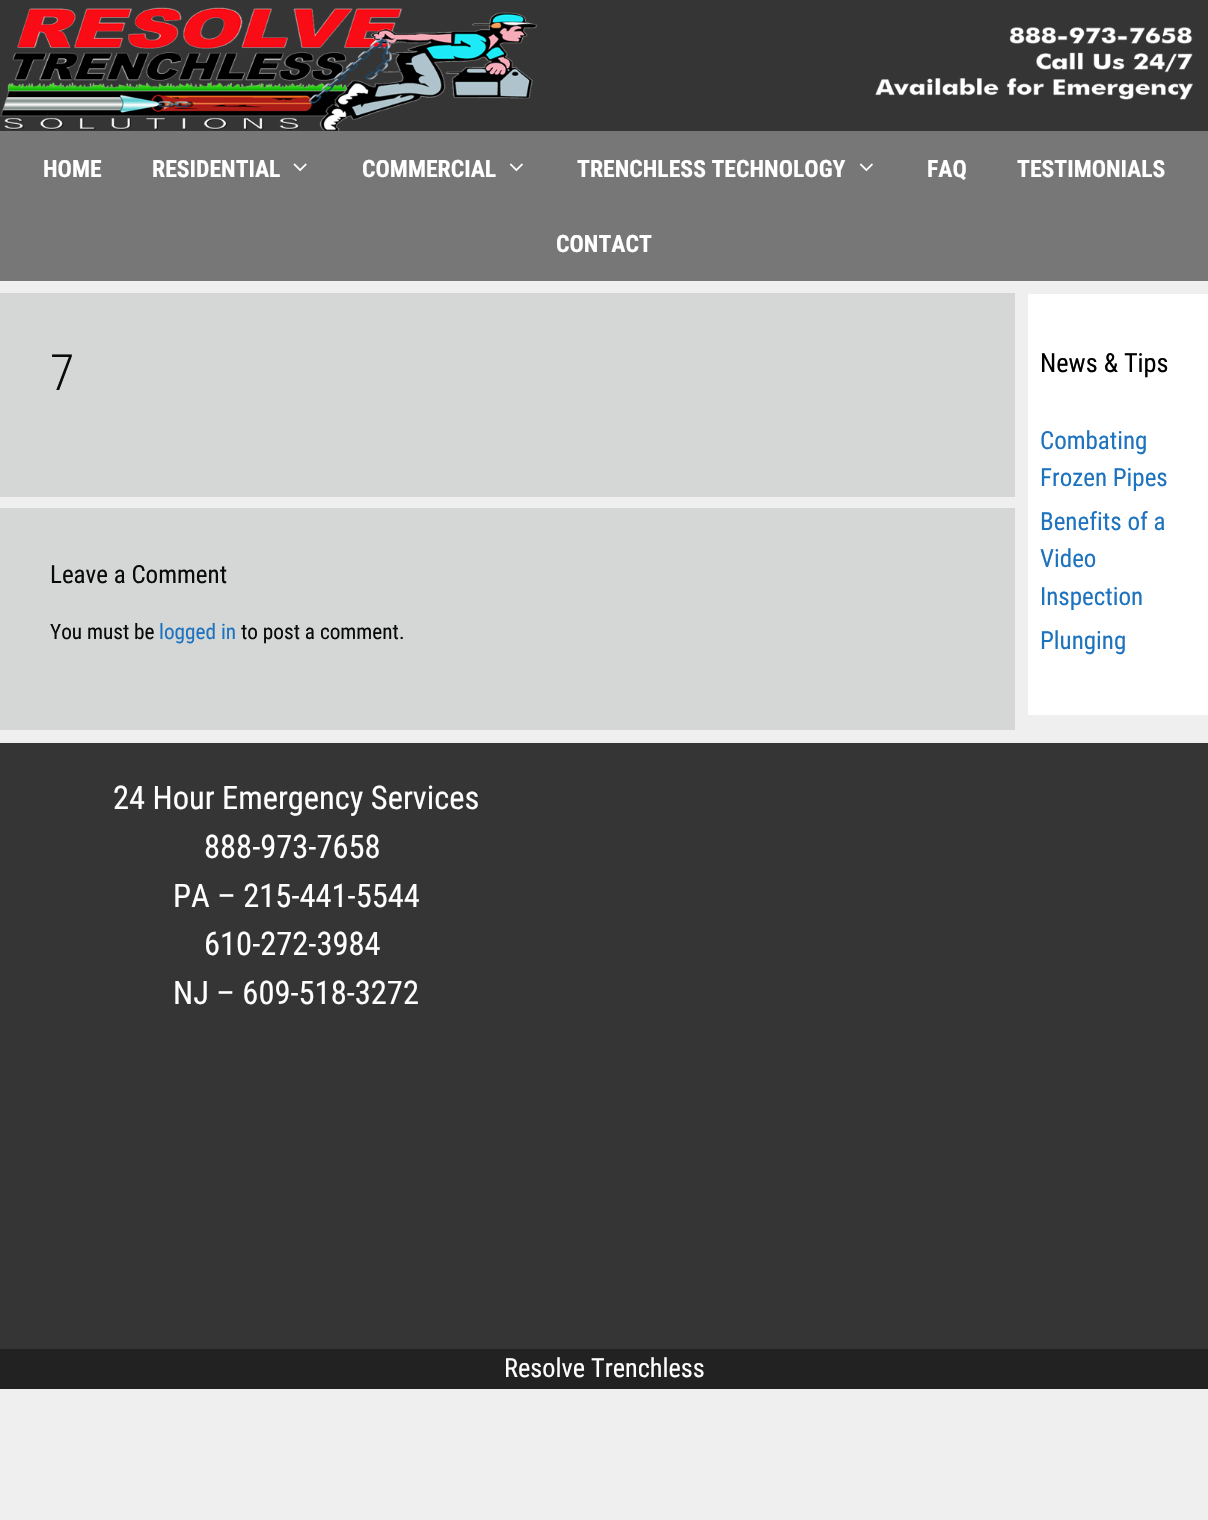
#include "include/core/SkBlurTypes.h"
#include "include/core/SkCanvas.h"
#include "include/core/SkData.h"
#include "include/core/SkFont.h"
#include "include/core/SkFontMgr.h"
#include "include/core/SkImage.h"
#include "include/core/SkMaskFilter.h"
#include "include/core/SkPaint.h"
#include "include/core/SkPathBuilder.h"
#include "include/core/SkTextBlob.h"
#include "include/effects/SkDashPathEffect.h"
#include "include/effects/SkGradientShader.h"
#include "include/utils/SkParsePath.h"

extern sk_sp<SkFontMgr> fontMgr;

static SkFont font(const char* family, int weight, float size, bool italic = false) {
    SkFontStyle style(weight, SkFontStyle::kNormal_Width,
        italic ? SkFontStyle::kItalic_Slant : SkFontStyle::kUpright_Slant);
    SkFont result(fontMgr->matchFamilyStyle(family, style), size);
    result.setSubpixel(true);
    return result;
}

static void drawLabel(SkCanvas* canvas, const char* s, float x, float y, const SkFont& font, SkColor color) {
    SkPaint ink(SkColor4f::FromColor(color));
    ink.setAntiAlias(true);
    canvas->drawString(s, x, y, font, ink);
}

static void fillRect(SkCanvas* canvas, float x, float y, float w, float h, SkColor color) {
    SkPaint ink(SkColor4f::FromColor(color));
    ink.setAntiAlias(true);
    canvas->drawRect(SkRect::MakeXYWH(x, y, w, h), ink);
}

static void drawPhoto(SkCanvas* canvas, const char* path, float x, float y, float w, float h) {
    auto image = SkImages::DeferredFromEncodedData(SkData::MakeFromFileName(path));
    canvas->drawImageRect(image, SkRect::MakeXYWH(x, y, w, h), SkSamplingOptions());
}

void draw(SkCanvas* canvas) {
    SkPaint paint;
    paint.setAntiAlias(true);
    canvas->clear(0xFFEFEFEF);
    fillRect(canvas, 0, 0, 1208, 131, 0xFF353535);
    drawPhoto(canvas, "assets/img1.png", 0, 7, 1193, 124);
    fillRect(canvas, 0, 131, 1208, 150, 0xFF777777);
    SkFont font1 = font("Roboto Condensed", 700, 23.75f);
    drawLabel(canvas, "HOME", 43, 177, font1, 0xFFFFFFFF);
    drawLabel(canvas, "RESIDENTIAL", 152, 177, font1, 0xFFFFFFFF);
    drawPhoto(canvas, "assets/img2.png", 293, 163, 14, 9);
    drawLabel(canvas, "COMMERCIAL", 362, 177, font1, 0xFFFFFFFF);
    drawPhoto(canvas, "assets/img3.png", 509, 163, 14, 9);
    drawLabel(canvas, "TRENCHLESS TECHNOLOGY", 577, 177, font1, 0xFFFFFFFF);
    drawPhoto(canvas, "assets/img3.png", 859, 163, 14, 9);
    drawLabel(canvas, "FAQ", 927, 177, font1, 0xFFFFFFFF);
    drawLabel(canvas, "TESTIMONIALS", 1017, 177, font1, 0xFFFFFFFF);
    drawLabel(canvas, "CONTACT", 556, 252, font1, 0xFFFFFFFF);
    fillRect(canvas, 0, 293, 1015, 204, 0xFFD5D7D7);
    SkFont font2 = font("Roboto Condensed", 300, 50);
    drawLabel(canvas, "7", 50, 390, font2, 0xFF0A0A0A);
    fillRect(canvas, 0, 508, 1015, 222, 0xFFD5D7D7);
    SkFont font3 = font("Roboto Condensed", 400, 25);
    drawLabel(canvas, "Leave a Comment", 50, 583, font3, 0xFF0A0A0A);
    SkFont font4 = font("Roboto Condensed", 400, 21.25f);
    drawLabel(canvas, "You must be", 50, 639, font4, 0xFF0A0A0A);
    drawLabel(canvas, "logged in", 159, 639, font4, 0xFF1E73BE);
    drawLabel(canvas, "to post a comment.", 241, 639, font4, 0xFF0A0A0A);
    fillRect(canvas, 1028, 294, 180, 421, 0xFFFFFFFF);
    SkFont font5 = font("Roboto Condensed", 400, 26.25f);
    drawLabel(canvas, "News & Tips", 1040, 372, font5, 0xFF000000);
    drawLabel(canvas, "Combating", 1040, 449, font3, 0xFF1E73BE);
    drawLabel(canvas, "Frozen Pipes", 1040, 486, font3, 0xFF1E73BE);
    drawLabel(canvas, "Benefits of a", 1040, 530, font3, 0xFF1E73BE);
    drawLabel(canvas, "Video", 1040, 567, font3, 0xFF1E73BE);
    drawLabel(canvas, "Inspection", 1040, 605, font3, 0xFF1E73BE);
    drawLabel(canvas, "Plunging", 1040, 649, font3, 0xFF1E73BE);
    fillRect(canvas, 0, 743, 1208, 606, 0xFF353535);
    SkFont font6 = font("Roboto Condensed", 400, 32.5f);
    drawLabel(canvas, "24 Hour Emergency Services", 113, 809, font6, 0xFFFFFFFF);
    drawLabel(canvas, "888-973-7658", 204, 858, font6, 0xFFFFFFFF);
    drawLabel(canvas, "PA – 215-441-5544", 173, 907, font6, 0xFFFFFFFF);
    drawLabel(canvas, "610-272-3984", 204, 955, font6, 0xFFFFFFFF);
    drawLabel(canvas, "NJ – 609-518-3272", 173, 1004, font6, 0xFFFFFFFF);
    fillRect(canvas, 0, 1349, 1208, 40, 0xFF222222);
    drawLabel(canvas, "Resolve Trenchless", 504, 1377, font5, 0xFFFFFFFF);
}
